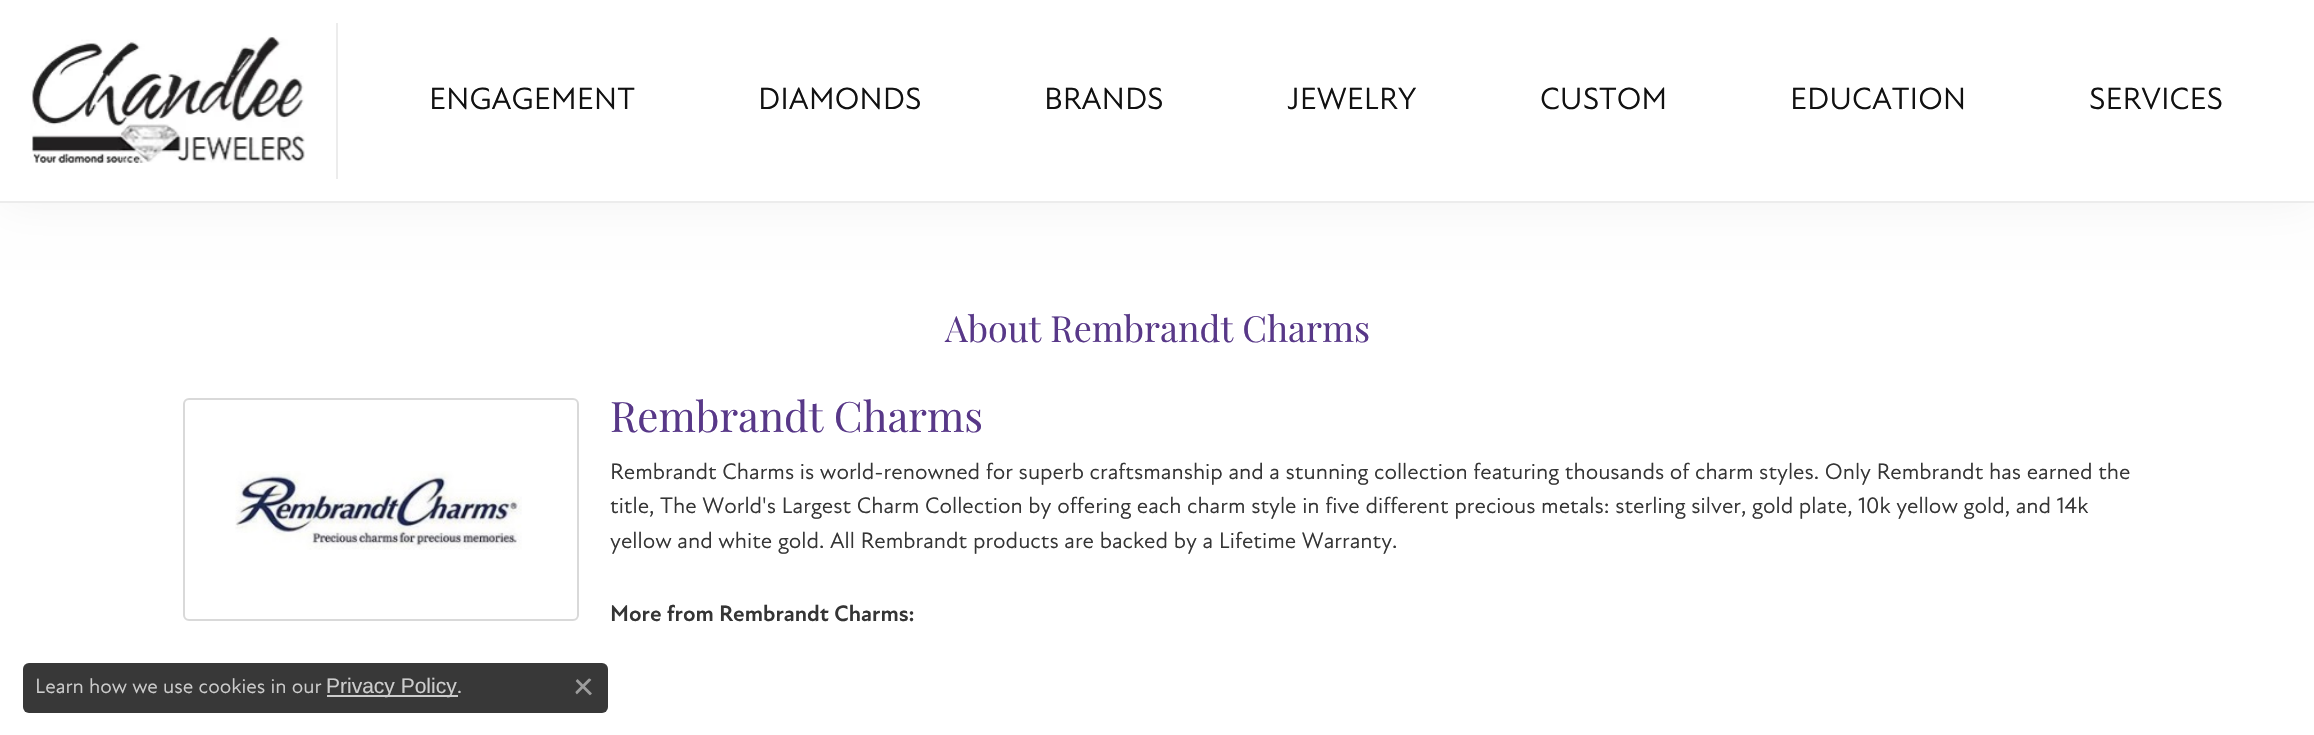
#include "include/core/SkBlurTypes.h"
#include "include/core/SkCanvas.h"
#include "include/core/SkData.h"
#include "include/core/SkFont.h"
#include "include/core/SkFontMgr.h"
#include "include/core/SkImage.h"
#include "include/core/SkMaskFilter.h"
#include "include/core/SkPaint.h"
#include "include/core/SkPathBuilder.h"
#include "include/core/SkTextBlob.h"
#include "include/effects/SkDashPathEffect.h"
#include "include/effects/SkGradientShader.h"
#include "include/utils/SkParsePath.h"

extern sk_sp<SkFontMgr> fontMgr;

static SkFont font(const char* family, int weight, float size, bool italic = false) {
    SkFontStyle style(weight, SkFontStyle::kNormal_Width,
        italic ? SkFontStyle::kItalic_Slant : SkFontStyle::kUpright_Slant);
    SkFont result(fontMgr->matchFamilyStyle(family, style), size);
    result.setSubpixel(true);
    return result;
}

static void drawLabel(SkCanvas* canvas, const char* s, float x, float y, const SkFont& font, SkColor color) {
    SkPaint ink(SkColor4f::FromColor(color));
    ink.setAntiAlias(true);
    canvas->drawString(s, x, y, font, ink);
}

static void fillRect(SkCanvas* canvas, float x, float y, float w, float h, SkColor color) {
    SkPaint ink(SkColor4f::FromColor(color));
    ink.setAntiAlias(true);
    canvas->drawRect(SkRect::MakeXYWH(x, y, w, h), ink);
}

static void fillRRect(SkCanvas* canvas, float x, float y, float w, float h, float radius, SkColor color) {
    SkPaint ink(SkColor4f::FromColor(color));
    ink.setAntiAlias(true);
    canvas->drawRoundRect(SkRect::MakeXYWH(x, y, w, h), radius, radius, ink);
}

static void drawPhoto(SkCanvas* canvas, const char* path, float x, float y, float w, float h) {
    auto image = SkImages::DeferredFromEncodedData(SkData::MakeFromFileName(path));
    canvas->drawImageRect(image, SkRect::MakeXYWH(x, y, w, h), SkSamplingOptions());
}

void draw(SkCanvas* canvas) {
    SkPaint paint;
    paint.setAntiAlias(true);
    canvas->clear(0xFFFFFFFF);
    paint.setColor(0x0D000000);
    paint.setMaskFilter(SkMaskFilter::MakeBlur(kNormal_SkBlurStyle, 22.5f));
    canvas->drawRect(SkRect::MakeXYWH(0, 0, 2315, 203), paint);
    paint.setMaskFilter(nullptr);
    fillRect(canvas, 0, 0, 2314, 201, 0xFFFFFFFF);
    fillRect(canvas, 0, 201, 2314, 2, 0xFFECECEC);
    fillRect(canvas, 336, 23, 2, 156, 0xFFECECEC);
    drawPhoto(canvas, "assets/img1.png", 30, 35, 275, 128);
    SkFont font1 = font("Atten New", 400, 31.25f);
    drawLabel(canvas, "ENGAGEMENT", 429, 109, font1, 0xFF111111);
    drawLabel(canvas, "DIAMONDS", 758, 109, font1, 0xFF111111);
    drawLabel(canvas, "BRANDS", 1044, 109, font1, 0xFF111111);
    drawLabel(canvas, "JEWELRY", 1287, 109, font1, 0xFF111111);
    drawLabel(canvas, "CUSTOM", 1540, 109, font1, 0xFF111111);
    drawLabel(canvas, "EDUCATION", 1790, 109, font1, 0xFF111111);
    drawLabel(canvas, "SERVICES", 2089, 109, font1, 0xFF111111);
    SkFont font2 = font("Playfair Display", 400, 36);
    drawLabel(canvas, "About Rembrandt Charms", 945, 342, font2, 0xFF583888);
    paint.setStroke(true);
    paint.setStrokeWidth(2);
    paint.setColor(0xFFD9D9D9);
    canvas->drawRoundRect(SkRect::MakeXYWH(184, 399, 394, 221), 5, 5, paint);
    drawPhoto(canvas, "assets/img2.png", 235, 471, 287, 79);
    SkFont font3 = font("Playfair Display", 400, 42);
    drawLabel(canvas, "Rembrandt Charms", 610, 432, font3, 0xFF583888);
    SkFont font4 = font("Atten New", 400, 22.8f);
    drawLabel(canvas, "Rembrandt Charms is world-renowned for superb craftsmanship and a stunning collection featuring thousands of charm styles. Only Rembrandt has earned the", 610, 479, font4, 0xFF353535);
    drawLabel(canvas, "title, The World's Largest Charm Collection by offering each charm style in five different precious metals: sterling silver, gold plate, 10k yellow gold, and 14k", 610, 513, font4, 0xFF353535);
    drawLabel(canvas, "yellow and white gold. All Rembrandt products are backed by a Lifetime Warranty.", 610, 548, font4, 0xFF353535);
    SkFont font5 = font("Atten New", 700, 22.8f);
    drawLabel(canvas, "More from Rembrandt Charms:", 610, 621, font5, 0xFF353535);
    fillRRect(canvas, 23, 663, 585, 50, 6, 0xFF383838);
    SkFont font6 = font("Atten New", 400, 21);
    drawLabel(canvas, "Learn how we use cookies in our", 35, 693, font6, 0xFFCCCCCC);
    fillRect(canvas, 327, 695, 131, 2, 0xFFCCCCCC);
    SkFont font7 = font("Liberation Sans", 400, 21);
    drawLabel(canvas, "Privacy Policy", 326, 693, font7, 0xFFCCCCCC);
    drawLabel(canvas, ".", 457, 693, font6, 0xFFCCCCCC);
    drawPhoto(canvas, "assets/img3.png", 575, 678, 17, 18);
}
